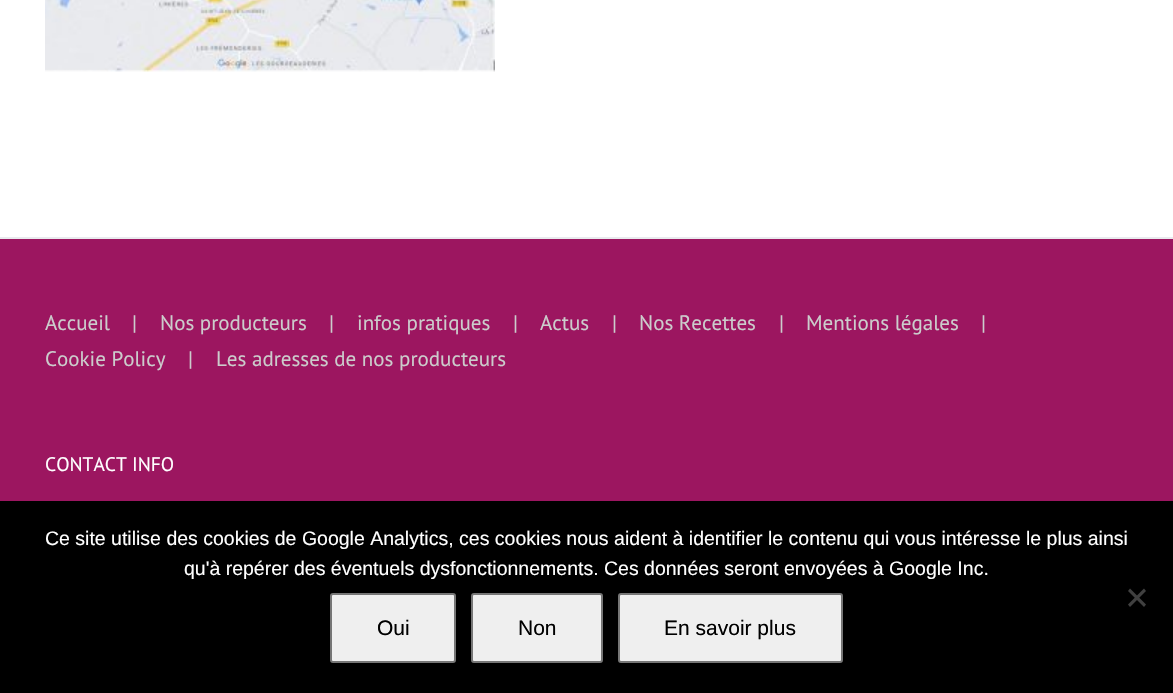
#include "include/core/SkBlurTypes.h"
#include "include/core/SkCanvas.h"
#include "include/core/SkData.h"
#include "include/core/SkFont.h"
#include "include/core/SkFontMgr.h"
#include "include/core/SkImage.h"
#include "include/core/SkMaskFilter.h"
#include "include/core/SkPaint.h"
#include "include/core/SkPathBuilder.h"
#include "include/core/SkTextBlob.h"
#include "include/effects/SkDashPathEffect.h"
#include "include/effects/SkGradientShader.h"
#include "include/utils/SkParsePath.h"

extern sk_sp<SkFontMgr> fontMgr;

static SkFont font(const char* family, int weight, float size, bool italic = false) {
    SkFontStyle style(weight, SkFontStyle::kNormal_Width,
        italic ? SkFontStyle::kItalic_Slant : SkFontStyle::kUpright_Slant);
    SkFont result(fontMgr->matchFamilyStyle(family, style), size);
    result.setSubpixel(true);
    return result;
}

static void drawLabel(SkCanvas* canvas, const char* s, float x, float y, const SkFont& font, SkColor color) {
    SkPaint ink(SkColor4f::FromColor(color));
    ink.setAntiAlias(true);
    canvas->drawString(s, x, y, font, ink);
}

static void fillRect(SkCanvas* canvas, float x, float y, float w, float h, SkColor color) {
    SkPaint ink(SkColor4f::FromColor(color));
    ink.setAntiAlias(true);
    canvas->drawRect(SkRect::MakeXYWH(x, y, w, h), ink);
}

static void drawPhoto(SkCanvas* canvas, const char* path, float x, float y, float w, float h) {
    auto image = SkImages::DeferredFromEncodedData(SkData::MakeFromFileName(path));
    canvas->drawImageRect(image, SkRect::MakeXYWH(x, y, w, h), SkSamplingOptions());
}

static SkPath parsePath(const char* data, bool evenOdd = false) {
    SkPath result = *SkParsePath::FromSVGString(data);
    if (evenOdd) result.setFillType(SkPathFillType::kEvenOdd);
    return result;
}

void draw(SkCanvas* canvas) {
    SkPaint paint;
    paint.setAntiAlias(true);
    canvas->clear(0xFFFFFFFF);
    drawPhoto(canvas, "assets/img1.png", 45, 0, 450, 72);
    fillRect(canvas, 0, 239, 1173, 262, 0xFF9C1660);
    fillRect(canvas, 0, 237, 1173, 2, 0xFFE9EAEE);
    SkFont font1 = font("PT Sans", 400, 21);
    drawLabel(canvas, "Accueil", 45, 330, font1, 0xFFCCCCCC);
    drawLabel(canvas, "|", 132, 330, font1, 0xFFCCCCCC);
    drawLabel(canvas, "Nos producteurs", 160, 330, font1, 0xFFCCCCCC);
    drawLabel(canvas, "|", 329, 330, font1, 0xFFCCCCCC);
    drawLabel(canvas, "infos pratiques", 357, 330, font1, 0xFFCCCCCC);
    drawLabel(canvas, "|", 513, 330, font1, 0xFFCCCCCC);
    drawLabel(canvas, "Actus", 540, 330, font1, 0xFFCCCCCC);
    drawLabel(canvas, "|", 612, 330, font1, 0xFFCCCCCC);
    drawLabel(canvas, "Nos Recettes", 639, 330, font1, 0xFFCCCCCC);
    drawLabel(canvas, "|", 779, 330, font1, 0xFFCCCCCC);
    drawLabel(canvas, "Mentions légales", 806, 330, font1, 0xFFCCCCCC);
    drawLabel(canvas, "|", 981, 330, font1, 0xFFCCCCCC);
    drawLabel(canvas, "Cookie Policy", 45, 366, font1, 0xFFCCCCCC);
    drawLabel(canvas, "|", 188, 366, font1, 0xFFCCCCCC);
    drawLabel(canvas, "Les adresses de nos producteurs", 216, 366, font1, 0xFFCCCCCC);
    SkFont font2 = font("PT Sans", 400, 19.5f);
    drawLabel(canvas, "CONTACT INFO", 45, 471, font2, 0xFFFFFFFF);
    fillRect(canvas, 0, 501, 1173, 192, 0xFF000000);
    SkFont font3 = font("Liberation Sans", 400, 19.5f);
    drawLabel(canvas, "Ce site utilise des cookies de Google Analytics, ces cookies nous aident à identifier le contenu qui vous intéresse le plus ainsi", 45, 545, font3, 0xFFFFFFFF);
    drawLabel(canvas, "qu'à repérer des éventuels dysfonctionnements. Ces données seront envoyées à Google Inc.", 184, 575, font3, 0xFFFFFFFF);
    paint.setColor(0xFF404040);
    canvas->drawPath(parsePath("M1144 588.5L1146 591L1130 607L1128 604.5Z"), paint);
    canvas->drawPath(parsePath("M1128 591L1130 588.5L1146 604.5L1144 607Z"), paint);
    paint.setColor(0xFFEFEFEF);
    canvas->drawRoundRect(SkRect::MakeXYWH(331, 594, 124, 68), 2, 2, paint);
    paint.setStroke(true);
    paint.setStrokeWidth(2);
    paint.setColor(0xFF767676);
    canvas->drawRoundRect(SkRect::MakeXYWH(331, 594, 124, 68), 2, 2, paint);
    SkFont font4 = font("Liberation Sans", 400, 21);
    drawLabel(canvas, "Oui", 377, 635, font4, 0xFF000000);
    paint.setStroke(false);
    paint.setColor(0xFFEFEFEF);
    canvas->drawRoundRect(SkRect::MakeXYWH(472, 594, 130, 68), 2, 2, paint);
    paint.setStroke(true);
    paint.setColor(0xFF767676);
    canvas->drawRoundRect(SkRect::MakeXYWH(472, 594, 130, 68), 2, 2, paint);
    drawLabel(canvas, "Non", 518, 635, font4, 0xFF000000);
    paint.setStroke(false);
    paint.setColor(0xFFEFEFEF);
    canvas->drawRoundRect(SkRect::MakeXYWH(619, 594, 223, 68), 2, 2, paint);
    paint.setStroke(true);
    paint.setColor(0xFF767676);
    canvas->drawRoundRect(SkRect::MakeXYWH(619, 594, 223, 68), 2, 2, paint);
    drawLabel(canvas, "En savoir plus", 664, 635, font4, 0xFF000000);
}
